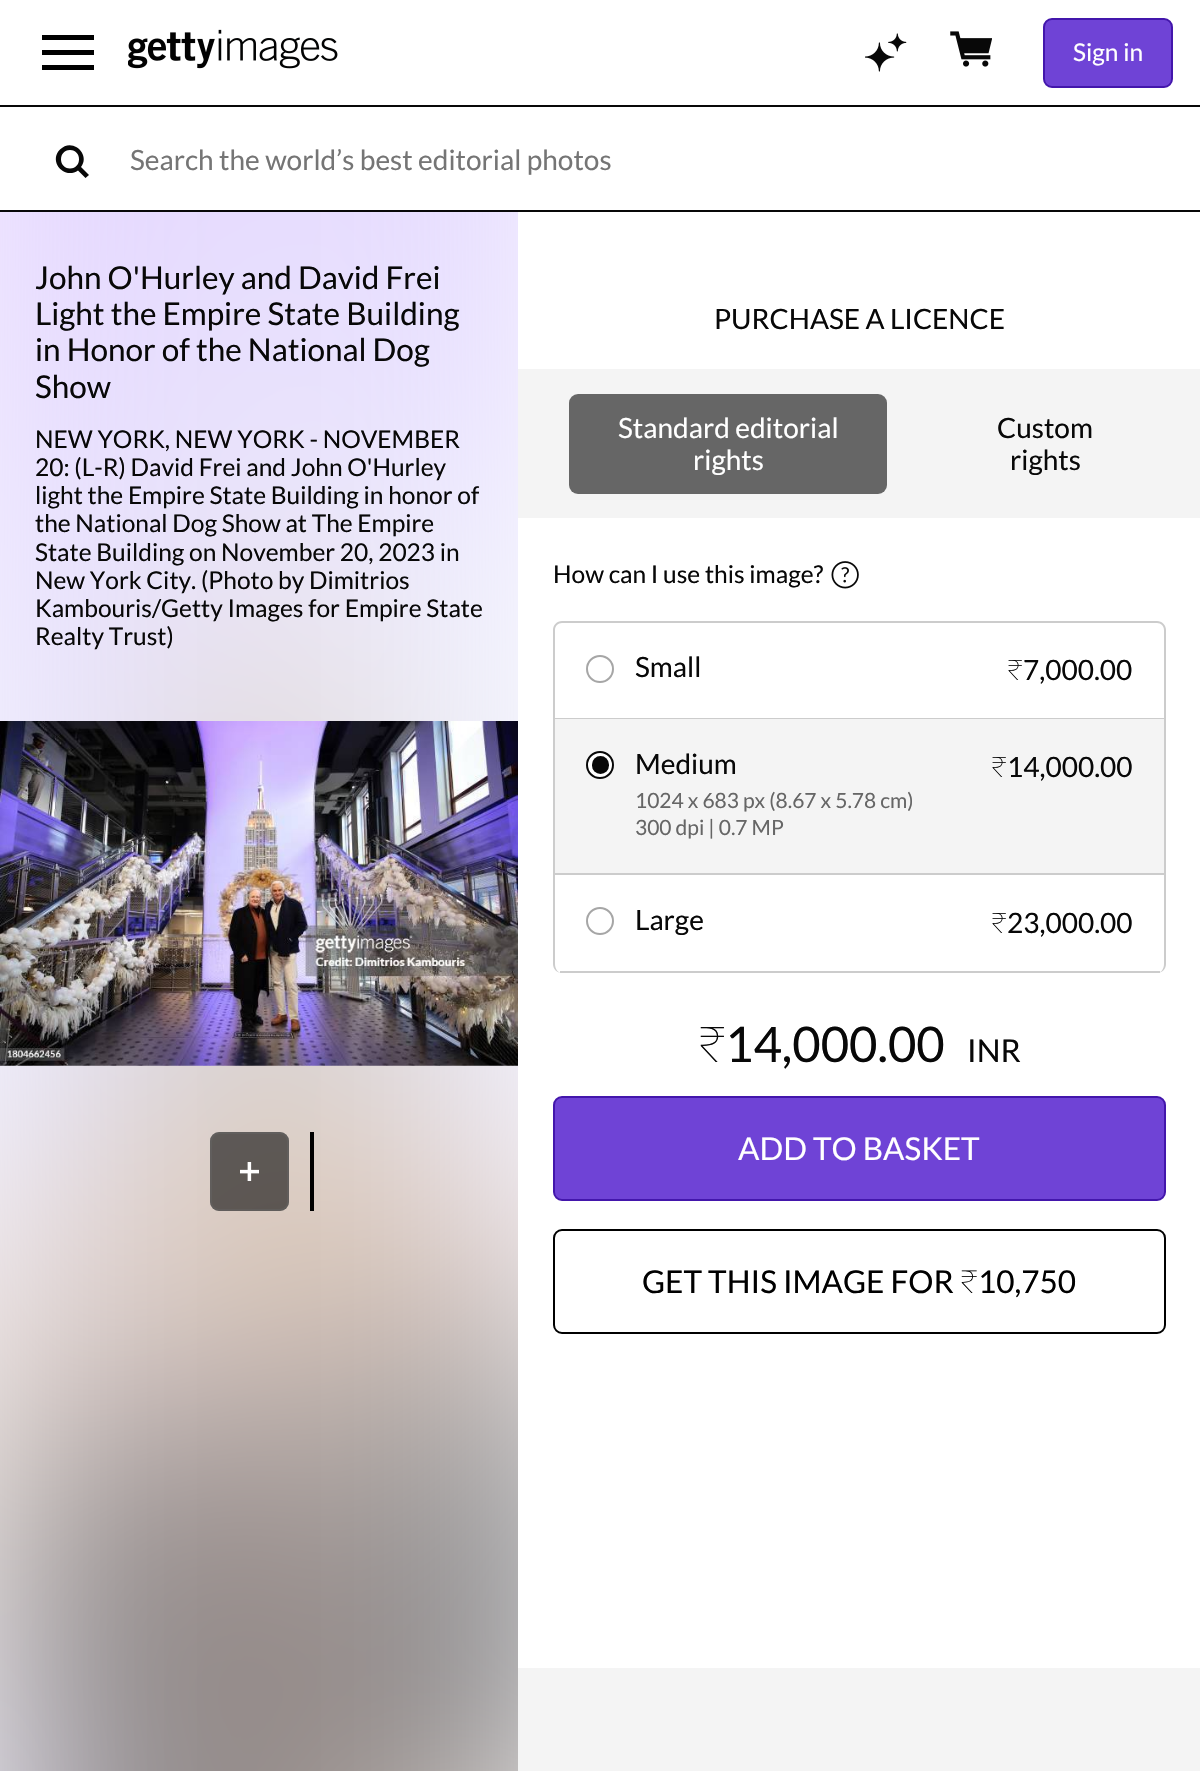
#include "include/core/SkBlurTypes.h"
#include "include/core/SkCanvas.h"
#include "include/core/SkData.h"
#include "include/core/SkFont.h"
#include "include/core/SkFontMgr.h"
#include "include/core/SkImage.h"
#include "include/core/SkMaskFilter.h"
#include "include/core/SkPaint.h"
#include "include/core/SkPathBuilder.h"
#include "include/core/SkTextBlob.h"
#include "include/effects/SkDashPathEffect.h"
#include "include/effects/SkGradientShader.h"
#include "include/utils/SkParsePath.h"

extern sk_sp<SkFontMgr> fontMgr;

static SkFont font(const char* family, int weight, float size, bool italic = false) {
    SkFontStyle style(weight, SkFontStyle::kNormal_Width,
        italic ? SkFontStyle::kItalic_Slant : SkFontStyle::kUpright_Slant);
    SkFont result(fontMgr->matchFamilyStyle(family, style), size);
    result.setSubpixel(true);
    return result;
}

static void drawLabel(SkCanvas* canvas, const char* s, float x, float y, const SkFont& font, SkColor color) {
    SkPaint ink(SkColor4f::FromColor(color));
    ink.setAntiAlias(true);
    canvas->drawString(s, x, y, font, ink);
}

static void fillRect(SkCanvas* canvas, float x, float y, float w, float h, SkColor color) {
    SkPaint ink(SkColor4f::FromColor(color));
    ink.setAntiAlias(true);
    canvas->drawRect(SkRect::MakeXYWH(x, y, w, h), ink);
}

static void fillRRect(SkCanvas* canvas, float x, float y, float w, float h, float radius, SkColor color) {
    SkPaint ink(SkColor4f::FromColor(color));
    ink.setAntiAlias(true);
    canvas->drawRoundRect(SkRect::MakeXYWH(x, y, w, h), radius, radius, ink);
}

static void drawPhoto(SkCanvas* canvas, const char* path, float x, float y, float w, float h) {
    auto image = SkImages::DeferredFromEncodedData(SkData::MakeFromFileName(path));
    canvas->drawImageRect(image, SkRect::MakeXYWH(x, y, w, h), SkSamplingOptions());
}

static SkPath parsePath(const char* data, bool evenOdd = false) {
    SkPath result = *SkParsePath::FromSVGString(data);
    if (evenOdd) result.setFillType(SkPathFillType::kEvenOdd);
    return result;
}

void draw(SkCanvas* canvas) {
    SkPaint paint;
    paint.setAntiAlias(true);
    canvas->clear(0xFFFFFFFF);
    paint.setColor(0xFF000000);
    canvas->drawPath(parsePath("M42 35H94V40H42ZM42 50H94V55H42ZM42 65H94V70H42Z"), paint);
    drawPhoto(canvas, "assets/img1.png", 128, 29, 210, 40);
    drawPhoto(canvas, "assets/img2.png", 865, 33, 42, 39);
    drawPhoto(canvas, "assets/img3.png", 950, 31, 42, 36);
    paint.setColor(0xFF6F43D6);
    canvas->drawRoundRect(SkRect::MakeXYWH(1044, 19, 128, 68), 8, 8, paint);
    paint.setStroke(true);
    paint.setStrokeWidth(2);
    paint.setColor(0xFF4316AC);
    canvas->drawRoundRect(SkRect::MakeXYWH(1044, 19, 128, 68), 8, 8, paint);
    SkFont font1 = font("Lato", 400, 24.5f);
    drawLabel(canvas, "Sign in", 1073, 61, font1, 0xFFFFFFFF);
    fillRect(canvas, 0, 105, 1200, 2, 0xFF080808);
    fillRect(canvas, 0, 210, 1200, 2, 0xFF080808);
    paint.setStroke(false);
    paint.setColor(0xFF080808);
    canvas->drawPath(parsePath("M89 175L81 167C91 154 72 137 60 149.5C48 161.5 64.5 180 78 170.5L85.5 178ZM70 168.5C58 168.5 58 150 70 150C82 150 82 168.5 70 168.5Z"), paint);
    SkFont font2 = font("Lato", 400, 28);
    drawLabel(canvas, "Search the world’s best editorial photos", 130, 170, font2, 0xFF757575);
    drawPhoto(canvas, "assets/img4.png", 0, 212, 518, 1559);
    SkFont font3 = font("Lato", 400, 31.5f);
    drawLabel(canvas, "John O'Hurley and David Frei", 35, 289, font3, 0xFF080808);
    drawLabel(canvas, "Light the Empire State Building", 35, 325, font3, 0xFF080808);
    drawLabel(canvas, "in Honor of the National Dog", 35, 361, font3, 0xFF080808);
    drawLabel(canvas, "Show", 35, 398, font3, 0xFF080808);
    drawLabel(canvas, "NEW YORK, NEW YORK - NOVEMBER", 35, 448, font1, 0xFF080808);
    drawLabel(canvas, "20: (L-R) David Frei and John O'Hurley", 35, 476, font1, 0xFF080808);
    drawLabel(canvas, "light the Empire State Building in honor of", 35, 504, font1, 0xFF080808);
    drawLabel(canvas, "the National Dog Show at The Empire", 35, 532, font1, 0xFF080808);
    drawLabel(canvas, "State Building on November 20, 2023 in", 35, 561, font1, 0xFF080808);
    drawLabel(canvas, "New York City. (Photo by Dimitrios", 35, 589, font1, 0xFF080808);
    drawLabel(canvas, "Kambouris/Getty Images for Empire State", 35, 617, font1, 0xFF080808);
    drawLabel(canvas, "Realty Trust)", 35, 645, font1, 0xFF080808);
    drawPhoto(canvas, "assets/img5.png", 0, 721, 518, 345);
    fillRRect(canvas, 210, 1132, 79, 79, 9, 0x99080808);
    paint.setStroke(true);
    paint.setColor(0x66666666);
    canvas->drawRoundRect(SkRect::MakeXYWH(211, 1133, 77, 77), 8, 8, paint);
    drawPhoto(canvas, "assets/img6.png", 240, 1162, 19, 19);
    fillRect(canvas, 310, 1132, 4, 79, 0xFF000000);
    drawLabel(canvas, "PURCHASE A LICENCE", 714, 329, font2, 0xFF080808);
    fillRect(canvas, 518, 369, 682, 149, 0xFFF4F4F4);
    fillRRect(canvas, 569, 394, 318, 100, 9, 0xFF666666);
    drawLabel(canvas, "Standard editorial", 618, 438, font2, 0xFFFFFFFF);
    drawLabel(canvas, "rights", 693, 470, font2, 0xFFFFFFFF);
    drawLabel(canvas, "Custom", 997, 438, font2, 0xFF080808);
    drawLabel(canvas, "rights", 1010, 470, font2, 0xFF080808);
    drawLabel(canvas, "How can I use this image?", 553, 583, font1, 0xFF080808);
    drawPhoto(canvas, "assets/img7.png", 831, 561, 28, 28);
    paint.setStroke(false);
    paint.setColor(0xFFCCCCCC);
    canvas->drawPath(parsePath("M562 621H1157C1162 621 1166 625 1166 630V964C1166 969 1162 973 1157 973H562C557 973 553 969 553 964V630C553 625 557 621 562 621ZM562 623H1157C1161 623 1164 626 1164 630V964C1164 969 1161 973 1157 973H562C558 973 555 969 555 964V630C555 626 558 623 562 623Z", true), paint);
    fillRect(canvas, 555, 718, 609, 1, 0xFFCCCCCC);
    paint.setStroke(true);
    paint.setColor(0xFFA6A6A6);
    canvas->drawCircle(600, 669, 13, paint);
    drawLabel(canvas, "Small", 635, 677, font2, 0xFF080808);
    SkFont font4 = font("Noto Sans", 100, 28);
    drawLabel(canvas, "₹", 1007, 680, font4, 0xFF080808);
    drawLabel(canvas, "7,000.00", 1023, 680, font2, 0xFF080808);
    fillRect(canvas, 555, 719, 609, 154, 0xFFF4F4F4);
    fillRect(canvas, 555, 873, 609, 2, 0xFFCCCCCC);
    paint.setStroke(false);
    paint.setColor(0xFFFFFFFF);
    canvas->drawCircle(600, 765, 13, paint);
    paint.setStroke(true);
    paint.setColor(0xFF080808);
    canvas->drawCircle(600, 765, 13, paint);
    fillRRect(canvas, 592, 756, 17, 18, 8.5f, 0xFF080808);
    drawLabel(canvas, "Medium", 635, 774, font2, 0xFF080808);
    SkFont font5 = font("Lato", 400, 21);
    drawLabel(canvas, "1024 x 683 px (8.67 x 5.78 cm)", 635, 808, font5, 0xFF666666);
    drawLabel(canvas, "300 dpi | 0.7 MP", 635, 835, font5, 0xFF666666);
    drawLabel(canvas, "₹", 991, 777, font4, 0xFF080808);
    drawLabel(canvas, "14,000.00", 1007, 777, font2, 0xFF080808);
    fillRect(canvas, 560, 971, 600, 2, 0xFFCCCCCC);
    paint.setColor(0xFFA6A6A6);
    canvas->drawCircle(600, 921, 13, paint);
    drawLabel(canvas, "Large", 635, 930, font2, 0xFF080808);
    drawLabel(canvas, "₹", 991, 933, font4, 0xFF080808);
    drawLabel(canvas, "23,000.00", 1007, 933, font2, 0xFF080808);
    SkFont font6 = font("Noto Sans", 100, 49);
    drawLabel(canvas, "₹", 698, 1062, font6, 0xFF080808);
    SkFont font7 = font("Lato", 400, 49);
    drawLabel(canvas, "14,000.00", 725, 1062, font7, 0xFF080808);
    drawLabel(canvas, "INR", 967, 1062, font3, 0xFF080808);
    paint.setStroke(false);
    paint.setColor(0xFF6F43D6);
    canvas->drawRoundRect(SkRect::MakeXYWH(554, 1097, 611, 103), 8, 8, paint);
    paint.setStroke(true);
    paint.setColor(0xFF4316AC);
    canvas->drawRoundRect(SkRect::MakeXYWH(554, 1097, 611, 103), 8, 8, paint);
    drawLabel(canvas, "ADD TO BASKET", 738, 1160, font3, 0xFFFFFFFF);
    paint.setColor(0xFF000000);
    canvas->drawRoundRect(SkRect::MakeXYWH(554, 1230, 611, 103), 8, 8, paint);
    drawLabel(canvas, "GET THIS IMAGE FOR", 642, 1293, font3, 0xFF000000);
    SkFont font8 = font("Noto Sans", 100, 31.5f);
    drawLabel(canvas, "₹", 960, 1293, font8, 0xFF000000);
    drawLabel(canvas, "10,750", 978, 1293, font3, 0xFF000000);
    fillRect(canvas, 518, 1668, 682, 103, 0xFFF4F4F4);
}
